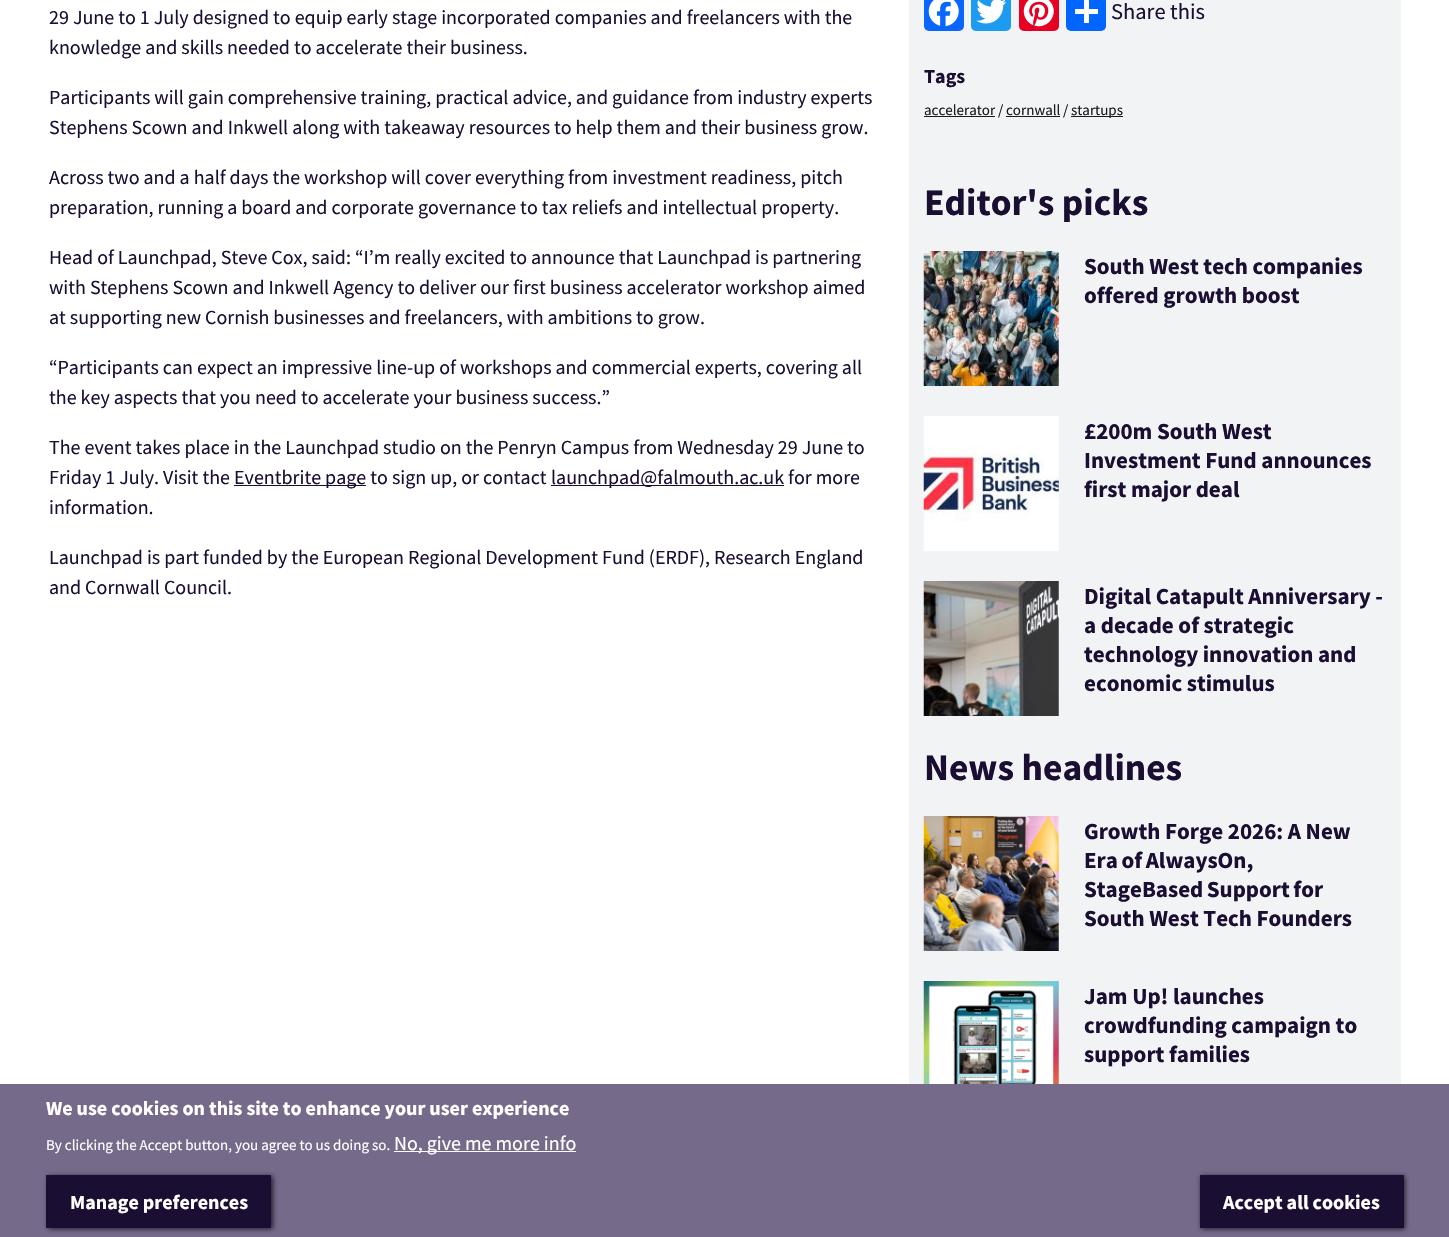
#include "include/core/SkBlurTypes.h"
#include "include/core/SkCanvas.h"
#include "include/core/SkData.h"
#include "include/core/SkFont.h"
#include "include/core/SkFontMgr.h"
#include "include/core/SkImage.h"
#include "include/core/SkMaskFilter.h"
#include "include/core/SkPaint.h"
#include "include/core/SkPathBuilder.h"
#include "include/core/SkTextBlob.h"
#include "include/effects/SkDashPathEffect.h"
#include "include/effects/SkGradientShader.h"
#include "include/utils/SkParsePath.h"

extern sk_sp<SkFontMgr> fontMgr;

static SkFont font(const char* family, int weight, float size, bool italic = false) {
    SkFontStyle style(weight, SkFontStyle::kNormal_Width,
        italic ? SkFontStyle::kItalic_Slant : SkFontStyle::kUpright_Slant);
    SkFont result(fontMgr->matchFamilyStyle(family, style), size);
    result.setSubpixel(true);
    return result;
}

static void drawLabel(SkCanvas* canvas, const char* s, float x, float y, const SkFont& font, SkColor color) {
    SkPaint ink(SkColor4f::FromColor(color));
    ink.setAntiAlias(true);
    canvas->drawString(s, x, y, font, ink);
}

static void drawTracked(SkCanvas* canvas, const char* s, float x, float y, const SkFont& font, const SkPaint& ink, float letter, float word) {
    std::vector<SkGlyphID> glyphs(font.countText(s, strlen(s), SkTextEncoding::kUTF8));
    std::vector<float> xs(glyphs.size());
    font.textToGlyphs(s, strlen(s), SkTextEncoding::kUTF8, glyphs);
    font.getXPos(glyphs, xs, x);
    float extra = 0;
    for (size_t i = 0; i < glyphs.size(); i++) {
        xs[i] += extra;
        extra += letter + word * (glyphs[i] == font.unicharToGlyph(' '));
    }
    canvas->drawTextBlob(SkTextBlob::MakeFromPosHGlyphs(glyphs, xs, y, font), 0, 0, ink);
}

static void fillRect(SkCanvas* canvas, float x, float y, float w, float h, SkColor color) {
    SkPaint ink(SkColor4f::FromColor(color));
    ink.setAntiAlias(true);
    canvas->drawRect(SkRect::MakeXYWH(x, y, w, h), ink);
}

static void fillRRect(SkCanvas* canvas, float x, float y, float w, float h, float radius, SkColor color) {
    SkPaint ink(SkColor4f::FromColor(color));
    ink.setAntiAlias(true);
    canvas->drawRoundRect(SkRect::MakeXYWH(x, y, w, h), radius, radius, ink);
}

static void drawPhoto(SkCanvas* canvas, const char* path, float x, float y, float w, float h) {
    auto image = SkImages::DeferredFromEncodedData(SkData::MakeFromFileName(path));
    canvas->drawImageRect(image, SkRect::MakeXYWH(x, y, w, h), SkSamplingOptions());
}

void draw(SkCanvas* canvas) {
    SkPaint paint;
    paint.setAntiAlias(true);
    canvas->clear(0xFFFFFFFF);
    SkFont font1 = font("Source Sans Pro", 400, 20);
    drawLabel(canvas, "29 June to 1 July designed to equip early stage incorporated companies and freelancers with the", 49, 24, font1, 0xFF1B0E33);
    drawLabel(canvas, "knowledge and skills needed to accelerate their business.", 49, 54, font1, 0xFF1B0E33);
    drawLabel(canvas, "Participants will gain comprehensive training, practical advice, and guidance from industry experts", 49, 104, font1, 0xFF1B0E33);
    drawLabel(canvas, "Stephens Scown and Inkwell along with takeaway resources to help them and their business grow.", 49, 134, font1, 0xFF1B0E33);
    drawLabel(canvas, "Across two and a half days the workshop will cover everything from investment readiness, pitch", 49, 184, font1, 0xFF1B0E33);
    drawLabel(canvas, "preparation, running a board and corporate governance to tax reliefs and intellectual property.", 49, 214, font1, 0xFF1B0E33);
    drawLabel(canvas, "Head of Launchpad, Steve Cox, said: “I’m really excited to announce that Launchpad is partnering", 49, 264, font1, 0xFF1B0E33);
    drawLabel(canvas, "with Stephens Scown and Inkwell Agency to deliver our first business accelerator workshop aimed", 49, 294, font1, 0xFF1B0E33);
    drawLabel(canvas, "at supporting new Cornish businesses and freelancers, with ambitions to grow.", 49, 324, font1, 0xFF1B0E33);
    drawLabel(canvas, "“Participants can expect an impressive line-up of workshops and commercial experts, covering all", 49, 374, font1, 0xFF1B0E33);
    drawLabel(canvas, "the key aspects that you need to accelerate your business success.”", 49, 404, font1, 0xFF1B0E33);
    drawLabel(canvas, "The event takes place in the Launchpad studio on the Penryn Campus from Wednesday 29 June to", 49, 454, font1, 0xFF1B0E33);
    drawLabel(canvas, "Friday 1 July. Visit the", 49, 484, font1, 0xFF1B0E33);
    fillRect(canvas, 234, 485, 132, 1, 0xFF1B0E33);
    drawLabel(canvas, "Eventbrite page to sign up, or contact", 234, 484, font1, 0xFF1B0E33);
    fillRect(canvas, 551, 485, 233, 1, 0xFF1B0E33);
    drawLabel(canvas, "launchpad@falmouth.ac.uk for more", 551, 484, font1, 0xFF1B0E33);
    drawLabel(canvas, "information.", 49, 514, font1, 0xFF1B0E33);
    drawLabel(canvas, "Launchpad is part funded by the European Regional Development Fund (ERDF), Research England", 49, 564, font1, 0xFF1B0E33);
    drawLabel(canvas, "and Cornwall Council.", 49, 594, font1, 0xFF1B0E33);
    fillRect(canvas, 909, 0, 492, 1084, 0xFFF2F3F5);
    fillRRect(canvas, 924, -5, 40, 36, 5, 0xFF0866FF);
    drawPhoto(canvas, "assets/img1.png", 928, 0, 31, 27);
    fillRRect(canvas, 971, -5, 40, 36, 5, 0xFF1D9BF0);
    drawPhoto(canvas, "assets/img2.png", 976, 0, 31, 24);
    fillRRect(canvas, 1019, -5, 40, 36, 5, 0xFFE60023);
    drawPhoto(canvas, "assets/img3.png", 1023, 0, 31, 27);
    fillRRect(canvas, 1066, -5, 40, 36, 5, 0xFF0166FF);
    fillRect(canvas, 1084, 0, 5, 23, 0xFFFFFFFF);
    fillRect(canvas, 1075, 9, 23, 5, 0xFFFFFFFF);
    SkFont font2 = font("Source Sans Pro", 400, 22.5f);
    drawLabel(canvas, "Share this", 1111, 19, font2, 0xFF1B0E33);
    SkFont font3 = font("Source Sans Pro", 700, 20);
    drawLabel(canvas, "Tags", 924, 83, font3, 0xFF1B0E33);
    SkFont font4 = font("Source Sans Pro", 400, 15);
    drawLabel(canvas, "accelerator", 924, 115, font4, 0xFF181B20);
    fillRect(canvas, 924, 116, 71, 1, 0xFF181B20);
    drawLabel(canvas, "/", 998, 115, font4, 0xFF1B0E33);
    drawLabel(canvas, "cornwall", 1006, 115, font4, 0xFF181B20);
    fillRect(canvas, 1006, 116, 54, 1, 0xFF181B20);
    drawLabel(canvas, "/", 1063, 115, font4, 0xFF1B0E33);
    fillRect(canvas, 1071, 116, 52, 1, 0xFF181B20);
    drawLabel(canvas, "startups", 1071, 115, font4, 0xFF181B20);
    SkFont font5 = font("Source Sans Pro", 700, 37.5f);
    drawLabel(canvas, "Editor's picks", 924, 215, font5, 0xFF1B0E33);
    drawPhoto(canvas, "assets/img4.png", 923, 251, 136, 135);
    SkFont font6 = font("Source Sans Pro", 700, 23);
    drawLabel(canvas, "South West tech companies", 1084, 274, font6, 0xFF1B0E33);
    drawLabel(canvas, "offered growth boost", 1084, 303, font6, 0xFF1B0E33);
    drawPhoto(canvas, "assets/img5.png", 923, 416, 136, 135);
    drawLabel(canvas, "£200m South West", 1084, 439, font6, 0xFF1B0E33);
    drawLabel(canvas, "Investment Fund announces", 1084, 468, font6, 0xFF1B0E33);
    drawLabel(canvas, "first major deal", 1084, 497, font6, 0xFF1B0E33);
    drawPhoto(canvas, "assets/img6.png", 923, 581, 136, 135);
    drawLabel(canvas, "Digital Catapult Anniversary -", 1084, 604, font6, 0xFF1B0E33);
    drawLabel(canvas, "a decade of strategic", 1084, 633, font6, 0xFF1B0E33);
    drawLabel(canvas, "technology innovation and", 1084, 662, font6, 0xFF1B0E33);
    drawLabel(canvas, "economic stimulus", 1084, 691, font6, 0xFF1B0E33);
    drawLabel(canvas, "News headlines", 924, 780, font5, 0xFF1B0E33);
    drawPhoto(canvas, "assets/img7.png", 923, 816, 136, 135);
    drawLabel(canvas, "Growth Forge 2026: A New", 1084, 839, font6, 0xFF1B0E33);
    paint.setColor(0xFF1B0E33);
    drawTracked(canvas, "Era of Always‑On,", 1084, 868, font6, paint, 0, -1);
    drawTracked(canvas, "Stage‑Based Support for", 1084, 897, font6, paint, 0, -1);
    drawLabel(canvas, "South West Tech Founders", 1084, 926, font6, 0xFF1B0E33);
    drawPhoto(canvas, "assets/img8.png", 923, 981, 136, 103);
    drawLabel(canvas, "Jam Up! launches", 1084, 1004, font6, 0xFF1B0E33);
    drawLabel(canvas, "crowdfunding campaign to", 1084, 1033, font6, 0xFF1B0E33);
    drawLabel(canvas, "support families", 1084, 1062, font6, 0xFF1B0E33);
    fillRect(canvas, 0, 1084, 1449, 153, 0xFF766A8B);
    drawLabel(canvas, "We use cookies on this site to enhance your user experience", 46, 1115, font3, 0xFFFFFFFF);
    drawLabel(canvas, "By clicking the Accept button, you agree to us doing so.", 46, 1150, font4, 0xFFFFFFFF);
    fillRect(canvas, 394, 1151, 182, 1, 0xFFFFFFFF);
    drawLabel(canvas, "No, give me more info", 394, 1150, font1, 0xFFFFFFFF);
    paint.setColor(0xB3000000);
    paint.setMaskFilter(SkMaskFilter::MakeBlur(kNormal_SkBlurStyle, 2.5f));
    canvas->drawRect(SkRect::MakeXYWH(48, 1176, 225, 53), paint);
    paint.setMaskFilter(nullptr);
    fillRect(canvas, 46, 1175, 225, 53, 0xFF1B0E33);
    drawLabel(canvas, "Manage preferences", 70, 1209, font3, 0xFFFFFFFF);
    paint.setMaskFilter(SkMaskFilter::MakeBlur(kNormal_SkBlurStyle, 2.5f));
    canvas->drawRect(SkRect::MakeXYWH(1201, 1176, 204, 53), paint);
    paint.setMaskFilter(nullptr);
    fillRect(canvas, 1200, 1175, 204, 53, 0xFF1B0E33);
    drawLabel(canvas, "Accept all cookies", 1223, 1209, font3, 0xFFFFFFFF);
}
